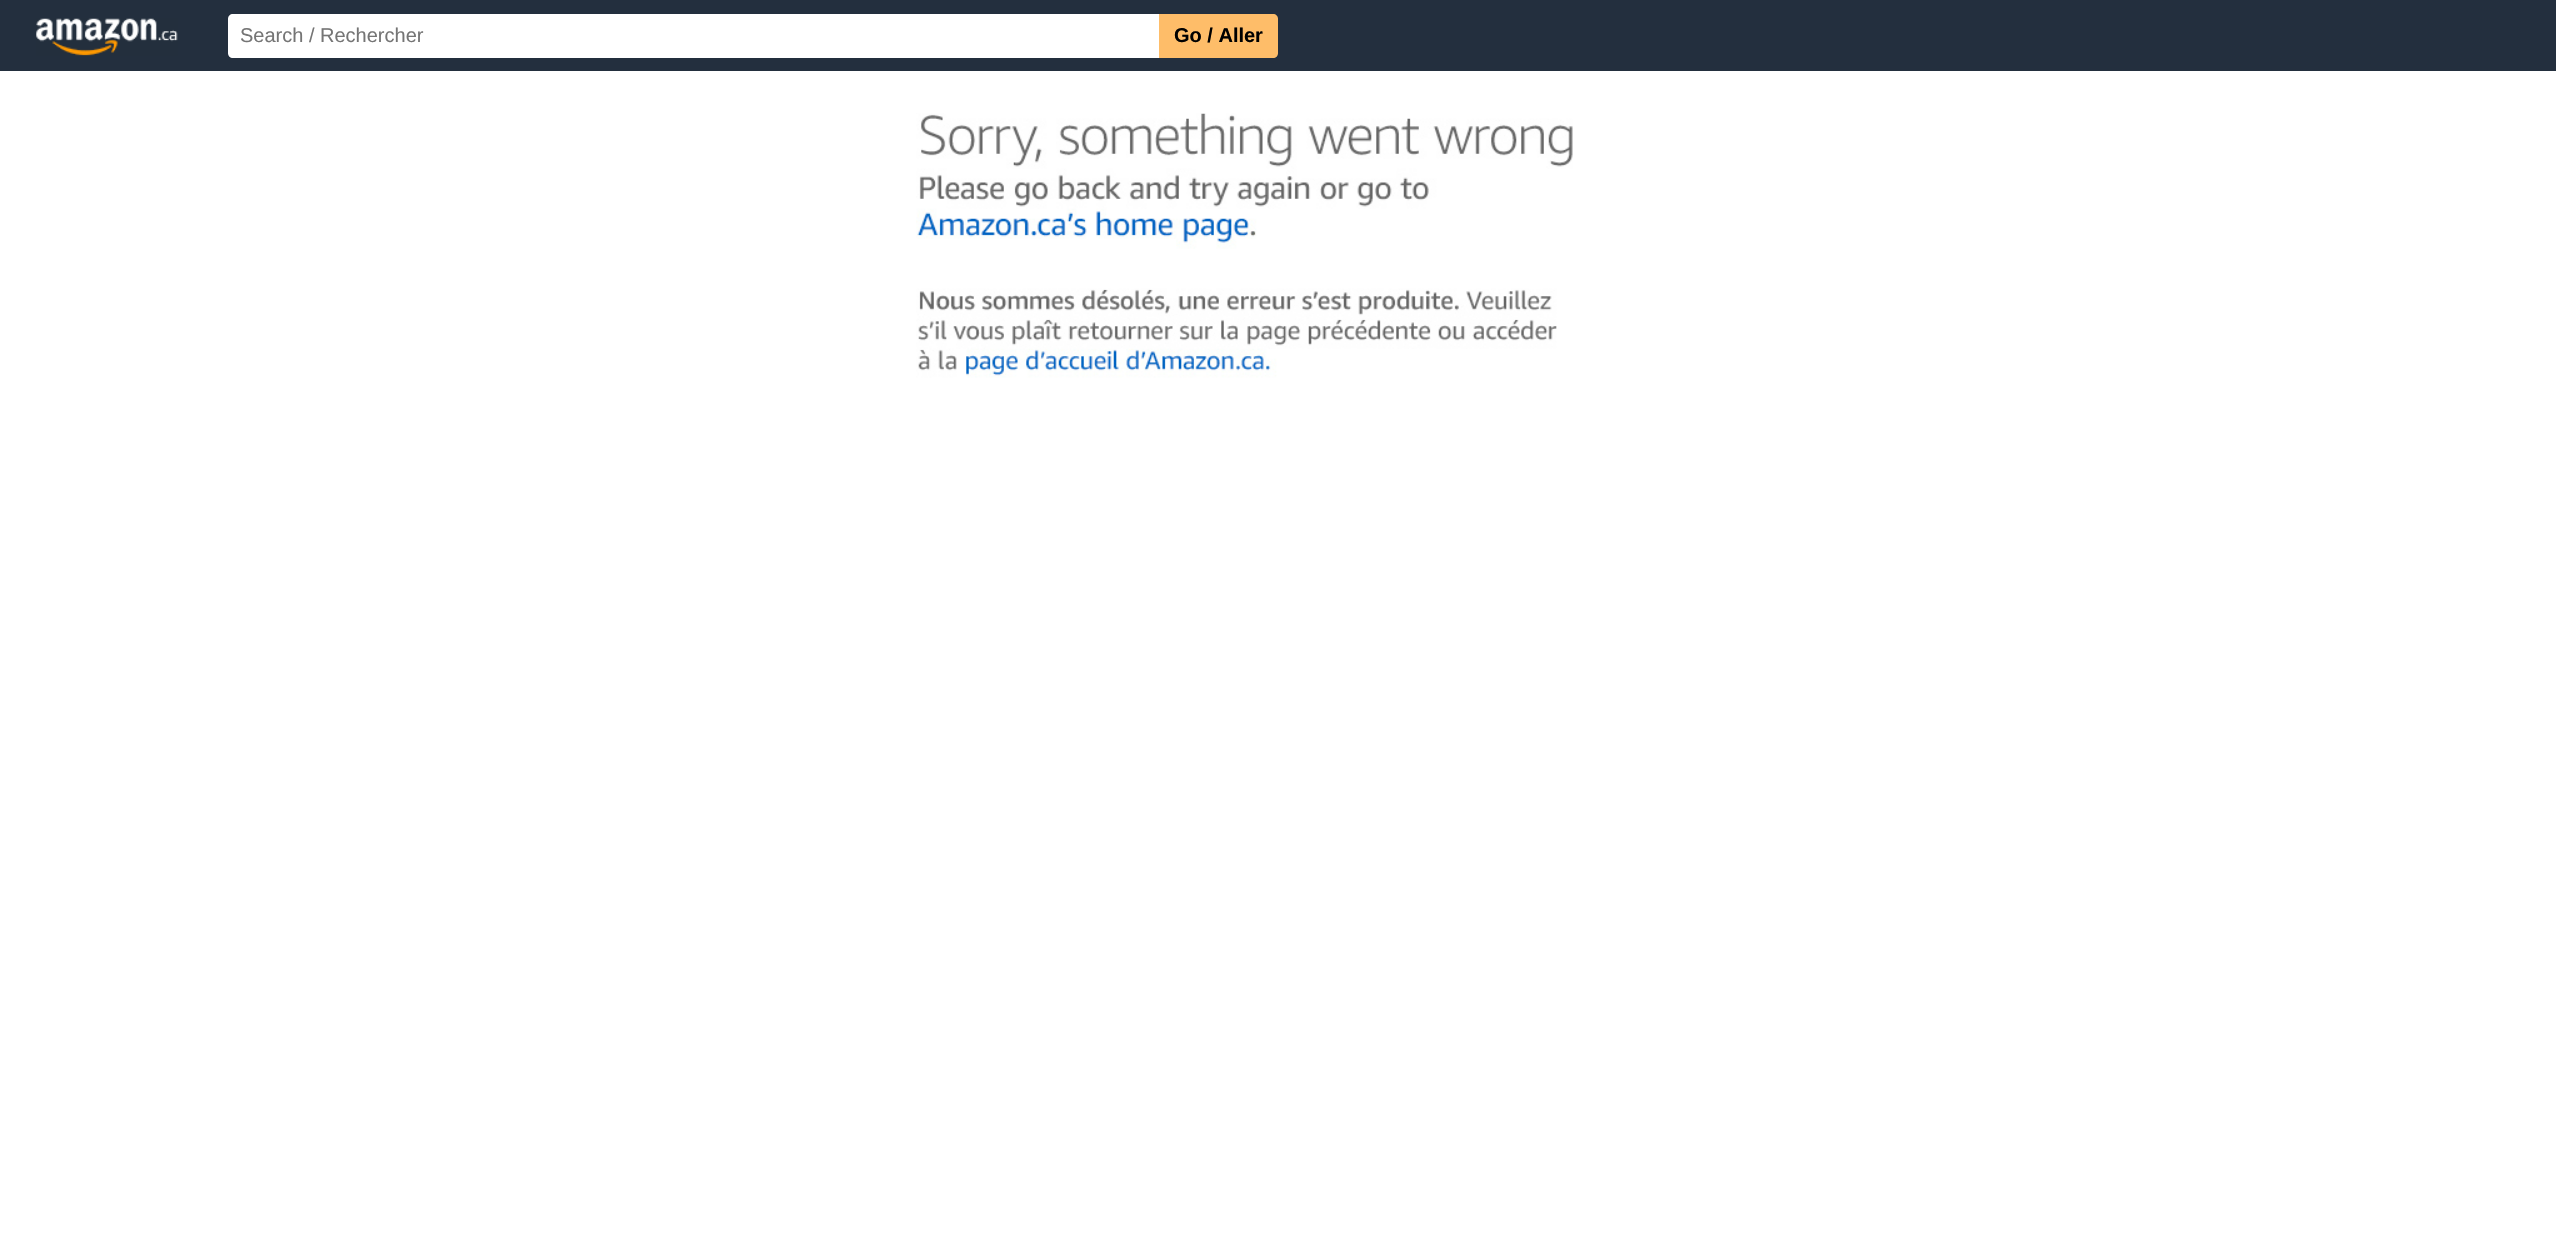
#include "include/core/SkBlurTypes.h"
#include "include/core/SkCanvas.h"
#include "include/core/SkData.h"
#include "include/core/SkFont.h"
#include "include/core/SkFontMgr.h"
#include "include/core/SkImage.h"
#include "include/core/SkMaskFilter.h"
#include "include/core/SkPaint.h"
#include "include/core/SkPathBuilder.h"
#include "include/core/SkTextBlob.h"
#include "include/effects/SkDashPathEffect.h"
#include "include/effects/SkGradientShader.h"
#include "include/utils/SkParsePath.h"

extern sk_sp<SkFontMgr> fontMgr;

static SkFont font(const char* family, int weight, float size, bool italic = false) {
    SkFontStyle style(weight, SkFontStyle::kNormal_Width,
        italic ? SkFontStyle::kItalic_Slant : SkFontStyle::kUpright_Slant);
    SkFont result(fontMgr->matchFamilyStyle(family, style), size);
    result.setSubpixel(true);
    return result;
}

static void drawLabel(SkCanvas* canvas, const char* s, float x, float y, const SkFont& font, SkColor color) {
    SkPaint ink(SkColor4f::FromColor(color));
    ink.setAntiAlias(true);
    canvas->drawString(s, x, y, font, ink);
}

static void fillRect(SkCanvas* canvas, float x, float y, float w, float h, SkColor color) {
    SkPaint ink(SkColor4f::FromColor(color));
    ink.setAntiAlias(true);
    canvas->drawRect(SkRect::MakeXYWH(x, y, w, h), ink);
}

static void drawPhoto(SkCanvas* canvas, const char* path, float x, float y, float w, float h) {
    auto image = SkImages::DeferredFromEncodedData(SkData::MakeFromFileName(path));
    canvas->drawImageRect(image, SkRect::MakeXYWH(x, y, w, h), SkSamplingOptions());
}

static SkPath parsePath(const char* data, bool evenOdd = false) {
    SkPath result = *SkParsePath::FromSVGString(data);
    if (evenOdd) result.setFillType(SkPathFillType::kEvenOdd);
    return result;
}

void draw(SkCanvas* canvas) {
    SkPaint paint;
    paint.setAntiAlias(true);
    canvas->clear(0xFFFFFFFF);
    fillRect(canvas, 0, 0, 2556, 71, 0xFF232F3E);
    drawPhoto(canvas, "assets/img1.png", 36, 18, 142, 38);
    paint.setColor(0xFFFFFFFF);
    canvas->drawPath(parsePath("M233 14H1253V58H233C230 58 228 56 228 53V19C228 16 230 14 233 14Z"), paint);
    SkFont font1 = font("Liberation Sans", 400, 20);
    drawLabel(canvas, "Search / Rechercher", 240, 42, font1, 0xFF757575);
    paint.setColor(0xFFFEBD69);
    canvas->drawPath(parsePath("M1159 14H1273C1276 14 1278 16 1278 19V53C1278 56 1276 58 1273 58H1159Z"), paint);
    SkFont font2 = font("Liberation Sans", 700, 20);
    drawLabel(canvas, "Go / Aller", 1174, 42, font2, 0xFF000000);
    drawPhoto(canvas, "assets/img2.png", 916, 113, 657, 265);
}
